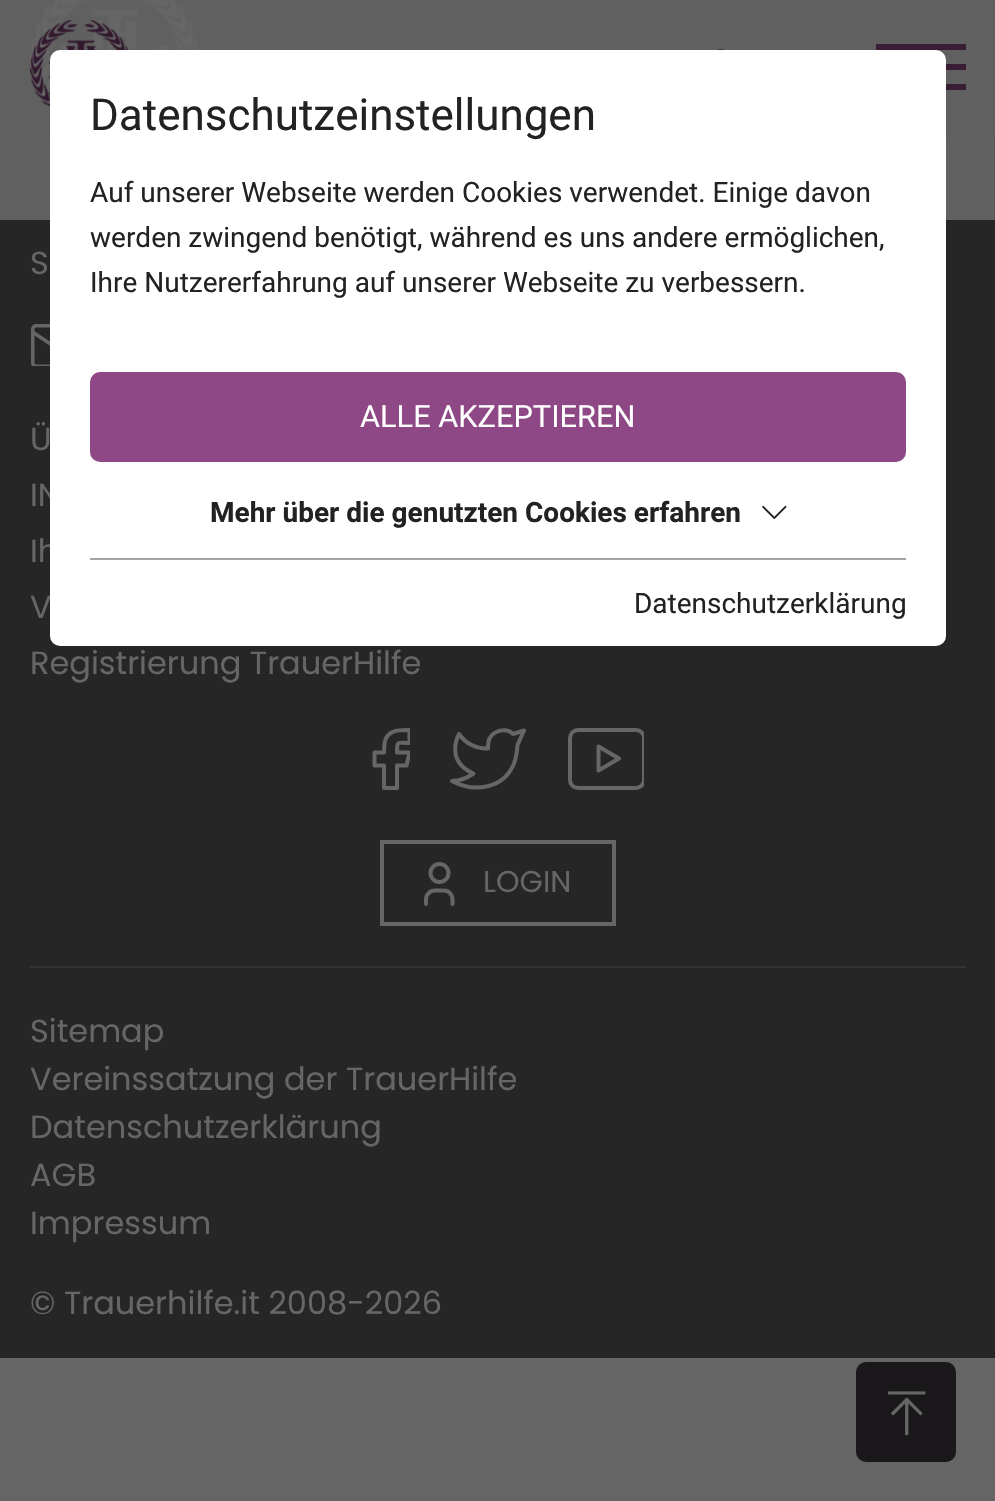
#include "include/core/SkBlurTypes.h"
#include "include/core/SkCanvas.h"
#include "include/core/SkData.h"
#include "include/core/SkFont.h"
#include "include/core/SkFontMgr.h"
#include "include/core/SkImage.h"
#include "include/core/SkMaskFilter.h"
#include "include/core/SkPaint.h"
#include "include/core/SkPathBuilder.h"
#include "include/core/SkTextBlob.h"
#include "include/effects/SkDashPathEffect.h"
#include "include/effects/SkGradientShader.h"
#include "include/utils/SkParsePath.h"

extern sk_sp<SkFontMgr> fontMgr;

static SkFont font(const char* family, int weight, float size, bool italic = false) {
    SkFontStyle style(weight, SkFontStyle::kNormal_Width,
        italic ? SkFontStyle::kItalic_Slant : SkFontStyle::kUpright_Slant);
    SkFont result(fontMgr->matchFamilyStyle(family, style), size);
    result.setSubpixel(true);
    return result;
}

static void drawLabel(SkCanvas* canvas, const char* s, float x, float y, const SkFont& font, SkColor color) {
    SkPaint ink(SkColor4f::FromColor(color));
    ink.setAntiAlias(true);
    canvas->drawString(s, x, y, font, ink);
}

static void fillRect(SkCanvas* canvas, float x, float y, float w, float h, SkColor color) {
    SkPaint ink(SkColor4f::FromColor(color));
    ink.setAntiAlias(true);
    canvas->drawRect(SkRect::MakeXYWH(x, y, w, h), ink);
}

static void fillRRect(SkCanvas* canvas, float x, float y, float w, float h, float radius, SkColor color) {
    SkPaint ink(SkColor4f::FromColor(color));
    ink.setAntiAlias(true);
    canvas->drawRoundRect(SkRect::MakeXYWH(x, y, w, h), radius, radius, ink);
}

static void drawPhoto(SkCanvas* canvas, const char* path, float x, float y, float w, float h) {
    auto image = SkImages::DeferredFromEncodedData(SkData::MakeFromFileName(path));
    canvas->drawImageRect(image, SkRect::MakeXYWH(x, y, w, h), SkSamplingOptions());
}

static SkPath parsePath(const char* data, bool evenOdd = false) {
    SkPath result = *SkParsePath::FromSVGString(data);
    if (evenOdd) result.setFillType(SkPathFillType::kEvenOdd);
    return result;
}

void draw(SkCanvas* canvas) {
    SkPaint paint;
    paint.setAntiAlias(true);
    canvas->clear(0xFF666565);
    fillRect(canvas, 0, 0, 995, 140, 0xFF606060);
    drawPhoto(canvas, "assets/img4.png", 30, 0, 169, 113);
    drawPhoto(canvas, "assets/img1.png", 30, 20, 99, 87);
    drawPhoto(canvas, "assets/img2.png", 716, 49, 9, 1);
    fillRect(canvas, 876, 44, 90, 6, 0xFF391D35);
    fillRect(canvas, 946, 64, 20, 6, 0xFF391D35);
    fillRect(canvas, 946, 84, 20, 6, 0xFF391D35);
    fillRect(canvas, 0, 140, 995, 1218, 0xFF262626);
    fillRect(canvas, 0, 140, 994, 80, 0xE8666666);
    fillRect(canvas, 994, 140, 1, 80, 0xFF555555);
    canvas->save();
    canvas->clipRect(SkRect::MakeXYWH(30, 324, 56, 42));
    paint.setStroke(true);
    paint.setStrokeWidth(3.5f);
    paint.setColor(0xFF666666);
    canvas->drawRoundRect(SkRect::MakeXYWH(32.75f, 325.75f, 50.5f, 40.5f), 3.25f, 3.25f, paint);
    canvas->restore();
    paint.setStrokeWidth(3.6f);
    paint.setStrokeCap(SkPaint::kRound_Cap);
    paint.setStrokeJoin(SkPaint::kRound_Join);
    canvas->drawPath(parsePath("M32.5 332L58 349L83.5 332"), paint);
    SkFont font1 = font("Poppins", 400, 32);
    drawLabel(canvas, "IN", 30, 506, font1, 0xFF666666);
    drawLabel(canvas, "Ih", 30, 562, font1, 0xFF666666);
    drawLabel(canvas, "V", 30, 618, font1, 0xFF666666);
    fillRRect(canvas, 50, 50, 896, 596, 10, 0xFFFFFFFF);
    SkFont font2 = font("Roboto", 400, 44);
    drawLabel(canvas, "Datenschutzeinstellungen", 90, 130, font2, 0xFF222222);
    SkFont font3 = font("Roboto", 400, 28);
    drawLabel(canvas, "Auf unserer Webseite werden Cookies verwendet. Einige davon", 90, 202, font3, 0xFF222222);
    drawLabel(canvas, "werden zwingend benötigt, während es uns andere ermöglichen,", 90, 247, font3, 0xFF222222);
    drawLabel(canvas, "Ihre Nutzererfahrung auf unserer Webseite zu verbessern.", 90, 292, font3, 0xFF222222);
    fillRRect(canvas, 90, 372, 816, 90, 10, 0xFF8E4885);
    SkFont font4 = font("Roboto", 400, 30.75f);
    drawLabel(canvas, "ALLE AKZEPTIEREN", 360, 427, font4, 0xFFFFFFFF);
    SkFont font5 = font("Roboto", 700, 28);
    drawLabel(canvas, "Mehr über die genutzten Cookies erfahren", 210, 522, font5, 0xFF222222);
    drawPhoto(canvas, "assets/img3.png", 762, 505, 25, 14);
    fillRect(canvas, 90, 558, 816, 2, 0xFFA5A5A5);
    drawLabel(canvas, "Datenschutzerklärung", 634, 613, font3, 0xFF222222);
    drawLabel(canvas, "S", 30, 274, font1, 0xFF666666);
    drawLabel(canvas, "Ü", 30, 450, font1, 0xFF666666);
    drawLabel(canvas, "Registrierung TrauerHilfe", 30, 674, font1, 0xFF666666);
    canvas->save();
    canvas->clipRect(SkRect::MakeXYWH(372, 728, 38, 62));
    paint.setStrokeWidth(4);
    canvas->drawPath(parsePath("M374.5 752.5V765.5H384V788H397V765.5H406.5L409.5 752.5H397C397 740 397.5 743 409.5 743V730C399 730 387 729.5 384.5 743L384 752.5H374.5"), paint);
    canvas->restore();
    canvas->drawPath(parsePath("M524 730.5L513 734C506.5 727 493.5 730.5 489.5 738.5C488 741.5 488 745 488 748.5C476.5 749 465.5 743.5 459 734C459 734 444 761 473.5 773.5C467 778 460 781 452 781C474.5 793 503.5 789 514 763.5C516.5 757 517 751.5 517.5 745Z"), paint);
    canvas->save();
    canvas->clipRect(SkRect::MakeXYWH(568, 728, 76, 62));
    paint.setStrokeCap(SkPaint::kButt_Cap);
    paint.setStrokeJoin(SkPaint::kMiter_Join);
    canvas->drawRoundRect(SkRect::MakeXYWH(570, 730, 74, 58), 8, 8, paint);
    canvas->restore();
    paint.setStrokeCap(SkPaint::kRound_Cap);
    paint.setStrokeJoin(SkPaint::kRound_Join);
    canvas->drawPath(parsePath("M598.5 746.5L619 758.5L598.5 770.5Z"), paint);
    paint.setStrokeCap(SkPaint::kButt_Cap);
    paint.setStrokeJoin(SkPaint::kMiter_Join);
    canvas->drawRect(SkRect::MakeXYWH(382, 842, 232, 82), paint);
    canvas->drawCircle(439.5f, 873, 9, paint);
    SkFont font6 = font("Poppins", 400, 30);
    drawLabel(canvas, "LOGIN", 483, 892, font6, 0xFF666666);
    paint.setStrokeCap(SkPaint::kRound_Cap);
    paint.setStrokeJoin(SkPaint::kRound_Join);
    canvas->drawPath(parsePath("M426 904V899.5C426 894.5 430 890.5 435 890.5H444C448.5 890.5 452.5 894.5 452.5 899.5V904"), paint);
    fillRect(canvas, 30, 966, 936, 2, 0xFF333333);
    drawLabel(canvas, "Sitemap", 30, 1042, font1, 0xFF666666);
    drawLabel(canvas, "Vereinssatzung der TrauerHilfe", 30, 1090, font1, 0xFF666666);
    drawLabel(canvas, "Datenschutzerklärung", 30, 1138, font1, 0xFF666666);
    drawLabel(canvas, "AGB", 30, 1186, font1, 0xFF666666);
    drawLabel(canvas, "Impressum", 30, 1234, font1, 0xFF666666);
    drawLabel(canvas, "© Trauerhilfe.it 2008-2026", 30, 1314, font1, 0xFF666666);
    fillRRect(canvas, 856, 1362, 100, 100, 10, 0xFF1A181A);
    drawPhoto(canvas, "assets/img5.png", 888, 1391, 38, 45);
}
